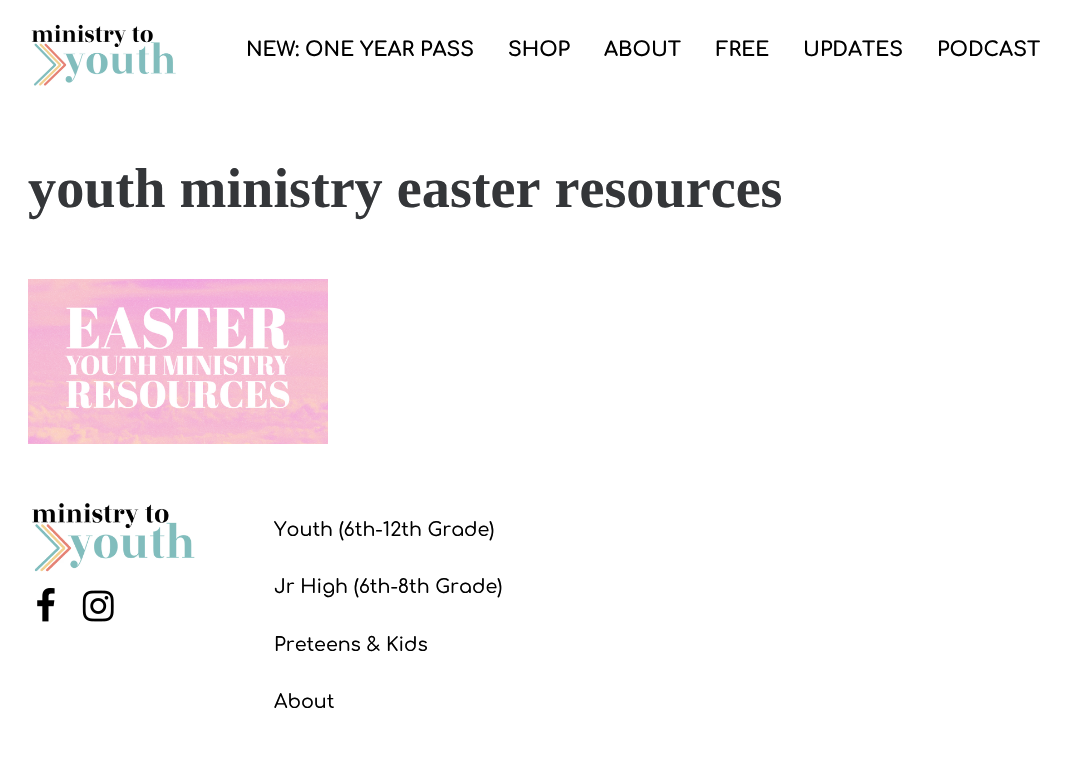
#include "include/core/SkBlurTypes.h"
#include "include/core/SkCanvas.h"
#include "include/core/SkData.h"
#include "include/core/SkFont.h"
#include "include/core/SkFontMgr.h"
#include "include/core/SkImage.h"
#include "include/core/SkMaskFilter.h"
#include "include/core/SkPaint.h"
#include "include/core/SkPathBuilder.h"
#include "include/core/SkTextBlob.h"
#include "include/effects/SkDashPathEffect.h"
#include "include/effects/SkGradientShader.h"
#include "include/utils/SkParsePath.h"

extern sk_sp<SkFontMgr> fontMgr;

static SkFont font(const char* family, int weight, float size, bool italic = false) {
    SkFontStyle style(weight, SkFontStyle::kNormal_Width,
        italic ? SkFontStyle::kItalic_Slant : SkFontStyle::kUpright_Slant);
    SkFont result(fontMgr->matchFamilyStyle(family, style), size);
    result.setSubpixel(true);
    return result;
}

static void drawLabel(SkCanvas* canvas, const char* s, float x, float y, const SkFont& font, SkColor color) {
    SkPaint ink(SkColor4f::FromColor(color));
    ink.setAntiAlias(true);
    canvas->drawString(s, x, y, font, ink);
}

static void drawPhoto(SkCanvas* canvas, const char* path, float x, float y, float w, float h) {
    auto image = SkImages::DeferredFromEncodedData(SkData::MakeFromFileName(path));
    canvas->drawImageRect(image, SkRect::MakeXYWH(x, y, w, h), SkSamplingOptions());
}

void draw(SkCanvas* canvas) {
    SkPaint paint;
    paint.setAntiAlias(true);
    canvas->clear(0xFFFFFFFF);
    drawPhoto(canvas, "assets/img1.png", 31, 24, 145, 62);
    SkFont font1 = font("Comfortaa", 700, 20);
    drawLabel(canvas, "NEW: ONE YEAR PASS", 246, 56, font1, 0xFF000000);
    drawLabel(canvas, "SHOP", 508, 56, font1, 0xFF000000);
    drawLabel(canvas, "ABOUT", 604, 56, font1, 0xFF000000);
    drawLabel(canvas, "FREE", 716, 56, font1, 0xFF000000);
    drawLabel(canvas, "UPDATES", 803, 56, font1, 0xFF000000);
    drawLabel(canvas, "PODCAST", 937, 56, font1, 0xFF000000);
    SkFont font2 = font("Liberation Serif", 700, 56.25f);
    drawLabel(canvas, "youth ministry easter resources", 28, 207, font2, 0xFF343639);
    drawPhoto(canvas, "assets/img2.png", 28, 279, 300, 165);
    drawPhoto(canvas, "assets/img3.png", 32, 503, 163, 69);
    drawPhoto(canvas, "assets/img4.png", 37, 588, 18, 34);
    drawPhoto(canvas, "assets/img5.png", 82, 590, 32, 32);
    SkFont font3 = font("Comfortaa", 500, 19.1f);
    drawLabel(canvas, "Youth (6th-12th Grade)", 274, 536, font3, 0xFF000000);
    drawLabel(canvas, "Jr High (6th-8th Grade)", 274, 593, font3, 0xFF000000);
    drawLabel(canvas, "Preteens & Kids", 274, 651, font3, 0xFF000000);
    drawLabel(canvas, "About", 274, 708, font3, 0xFF000000);
}
